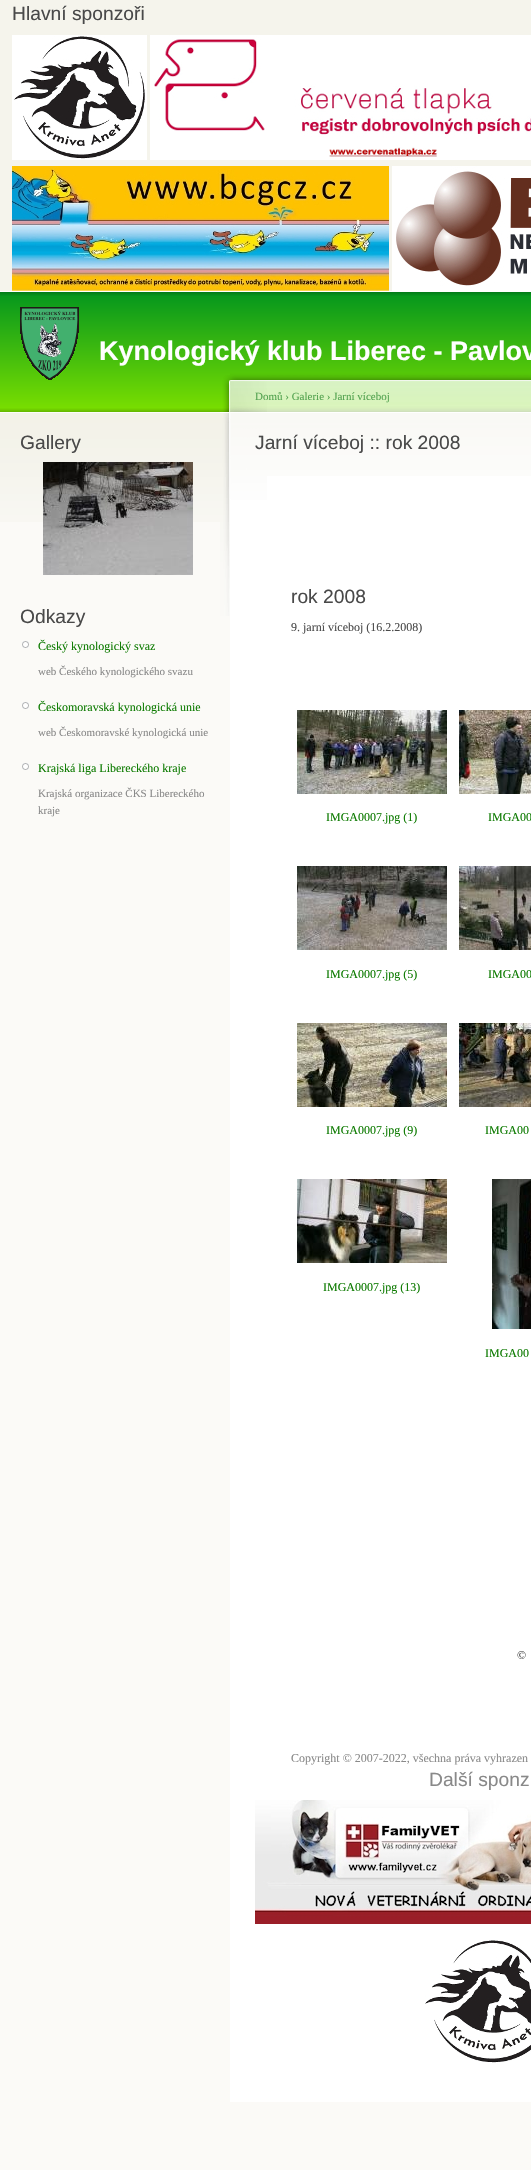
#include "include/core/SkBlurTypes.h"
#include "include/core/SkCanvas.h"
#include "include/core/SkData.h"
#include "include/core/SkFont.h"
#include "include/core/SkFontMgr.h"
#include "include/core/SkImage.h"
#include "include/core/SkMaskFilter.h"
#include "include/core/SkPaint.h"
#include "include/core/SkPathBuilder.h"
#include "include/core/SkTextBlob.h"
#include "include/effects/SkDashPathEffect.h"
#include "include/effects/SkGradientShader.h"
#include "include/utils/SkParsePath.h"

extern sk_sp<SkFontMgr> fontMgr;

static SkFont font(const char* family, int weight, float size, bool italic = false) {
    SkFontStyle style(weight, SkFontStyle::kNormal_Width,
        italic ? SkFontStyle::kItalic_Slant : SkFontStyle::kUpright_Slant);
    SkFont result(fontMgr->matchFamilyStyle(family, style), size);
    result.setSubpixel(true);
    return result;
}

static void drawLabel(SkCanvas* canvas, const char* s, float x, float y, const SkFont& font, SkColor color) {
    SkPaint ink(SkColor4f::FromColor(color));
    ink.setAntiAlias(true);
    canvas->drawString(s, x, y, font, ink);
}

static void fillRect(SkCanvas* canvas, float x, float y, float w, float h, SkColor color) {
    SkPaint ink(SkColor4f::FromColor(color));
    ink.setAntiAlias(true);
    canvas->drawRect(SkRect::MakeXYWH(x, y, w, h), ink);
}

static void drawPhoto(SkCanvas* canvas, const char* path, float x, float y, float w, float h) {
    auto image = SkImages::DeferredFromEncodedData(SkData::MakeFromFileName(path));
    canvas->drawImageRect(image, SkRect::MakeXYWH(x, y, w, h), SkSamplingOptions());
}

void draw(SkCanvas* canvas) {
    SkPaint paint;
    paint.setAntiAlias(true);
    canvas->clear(0xFFFBFAF7);
    fillRect(canvas, 0, 0, 531, 291, 0xFFF5F4EC);
    SkFont font1 = font("Liberation Sans", 400, 19.25f);
    drawLabel(canvas, "Hlavní sponzoři", 12, 20, font1, 0xFF494949);
    drawPhoto(canvas, "assets/img1.png", 12, 35, 135, 125);
    drawPhoto(canvas, "assets/img2.png", 150, 35, 381, 125);
    drawPhoto(canvas, "assets/img3.png", 12, 166, 377, 125);
    drawPhoto(canvas, "assets/img4.png", 392, 166, 139, 125);
    drawPhoto(canvas, "assets/img5.png", 0, 291, 531, 231);
    drawPhoto(canvas, "assets/img6.png", 20, 307, 59, 73);
    SkFont font2 = font("Liberation Sans", 700, 27);
    drawLabel(canvas, "Kynologický klub Liberec - Pavlov", 99, 360, font2, 0xFFFFFFFF);
    drawLabel(canvas, "Gallery", 20, 449, font1, 0xFF494949);
    drawPhoto(canvas, "assets/img7.png", 43, 462, 150, 113);
    drawLabel(canvas, "Odkazy", 20, 623, font1, 0xFF494949);
    drawPhoto(canvas, "assets/img8.png", 22, 641, 7, 7);
    SkFont font3 = font("Liberation Serif", 400, 12);
    drawLabel(canvas, "Český kynologický svaz", 38, 650, font3, 0xFF0C7A00);
    SkFont font4 = font("Liberation Serif", 400, 11);
    drawLabel(canvas, "web Českého kynologického svazu", 38, 675, font4, 0xFF898989);
    drawPhoto(canvas, "assets/img8.png", 22, 702, 7, 7);
    drawLabel(canvas, "Českomoravská kynologická unie", 38, 711, font3, 0xFF0C7A00);
    drawLabel(canvas, "web Českomoravské kynologická unie", 38, 736, font4, 0xFF898989);
    drawPhoto(canvas, "assets/img8.png", 22, 763, 7, 7);
    drawLabel(canvas, "Krajská liga Libereckého kraje", 38, 772, font3, 0xFF0C7A00);
    drawLabel(canvas, "Krajská organizace ČKS Libereckého", 38, 797, font4, 0xFF898989);
    drawLabel(canvas, "kraje", 38, 814, font4, 0xFF898989);
    fillRect(canvas, 230, 476, 301, 1626, 0xFFFFFFFF);
    drawPhoto(canvas, "assets/img9.png", 230, 371, 301, 105);
    drawPhoto(canvas, "assets/img10.png", 220, 375, 47, 241);
    drawLabel(canvas, "Domů › Galerie › Jarní víceboj", 255, 400, font4, 0xFF52A24F);
    drawLabel(canvas, "Jarní víceboj :: rok 2008", 255, 449, font1, 0xFF494949);
    drawLabel(canvas, "rok 2008", 291, 603, font1, 0xFF494949);
    drawLabel(canvas, "9. jarní víceboj (16.2.2008)", 291, 631, font3, 0xFF494949);
    drawPhoto(canvas, "assets/img11.png", 297, 710, 150, 84);
    drawLabel(canvas, "IMGA0007.jpg (1)", 326, 821, font3, 0xFF0C7A00);
    drawPhoto(canvas, "assets/img12.png", 459, 710, 72, 84);
    drawLabel(canvas, "IMGA00", 488, 821, font3, 0xFF0C7A00);
    drawPhoto(canvas, "assets/img13.png", 297, 866, 150, 84);
    drawLabel(canvas, "IMGA0007.jpg (5)", 326, 978, font3, 0xFF0C7A00);
    drawPhoto(canvas, "assets/img14.png", 459, 866, 72, 84);
    drawLabel(canvas, "IMGA00", 488, 978, font3, 0xFF0C7A00);
    drawPhoto(canvas, "assets/img15.png", 297, 1023, 150, 84);
    drawLabel(canvas, "IMGA0007.jpg (9)", 326, 1134, font3, 0xFF0C7A00);
    drawPhoto(canvas, "assets/img16.png", 459, 1023, 72, 84);
    drawLabel(canvas, "IMGA00", 485, 1134, font3, 0xFF0C7A00);
    drawPhoto(canvas, "assets/img17.png", 297, 1179, 150, 84);
    drawLabel(canvas, "IMGA0007.jpg (13)", 323, 1291, font3, 0xFF0C7A00);
    drawPhoto(canvas, "assets/img18.png", 492, 1179, 39, 150);
    drawLabel(canvas, "IMGA00", 485, 1357, font3, 0xFF0C7A00);
    drawLabel(canvas, "©", 517, 1659, font3, 0xFF494949);
    drawLabel(canvas, "Copyright © 2007-2022, všechna práva vyhrazen", 291, 1762, font3, 0xFF898989);
    drawLabel(canvas, "Další sponz", 429, 1786, font1, 0xFF898989);
    drawPhoto(canvas, "assets/img19.png", 255, 1800, 276, 124);
    drawPhoto(canvas, "assets/img20.png", 425, 1940, 106, 123);
}
